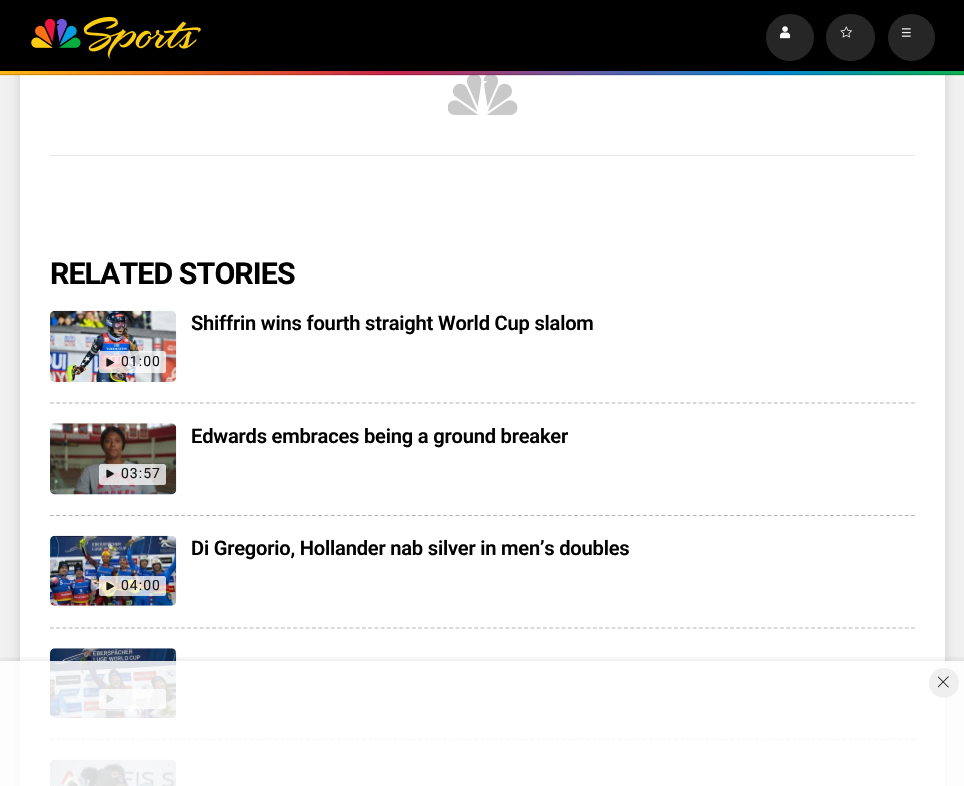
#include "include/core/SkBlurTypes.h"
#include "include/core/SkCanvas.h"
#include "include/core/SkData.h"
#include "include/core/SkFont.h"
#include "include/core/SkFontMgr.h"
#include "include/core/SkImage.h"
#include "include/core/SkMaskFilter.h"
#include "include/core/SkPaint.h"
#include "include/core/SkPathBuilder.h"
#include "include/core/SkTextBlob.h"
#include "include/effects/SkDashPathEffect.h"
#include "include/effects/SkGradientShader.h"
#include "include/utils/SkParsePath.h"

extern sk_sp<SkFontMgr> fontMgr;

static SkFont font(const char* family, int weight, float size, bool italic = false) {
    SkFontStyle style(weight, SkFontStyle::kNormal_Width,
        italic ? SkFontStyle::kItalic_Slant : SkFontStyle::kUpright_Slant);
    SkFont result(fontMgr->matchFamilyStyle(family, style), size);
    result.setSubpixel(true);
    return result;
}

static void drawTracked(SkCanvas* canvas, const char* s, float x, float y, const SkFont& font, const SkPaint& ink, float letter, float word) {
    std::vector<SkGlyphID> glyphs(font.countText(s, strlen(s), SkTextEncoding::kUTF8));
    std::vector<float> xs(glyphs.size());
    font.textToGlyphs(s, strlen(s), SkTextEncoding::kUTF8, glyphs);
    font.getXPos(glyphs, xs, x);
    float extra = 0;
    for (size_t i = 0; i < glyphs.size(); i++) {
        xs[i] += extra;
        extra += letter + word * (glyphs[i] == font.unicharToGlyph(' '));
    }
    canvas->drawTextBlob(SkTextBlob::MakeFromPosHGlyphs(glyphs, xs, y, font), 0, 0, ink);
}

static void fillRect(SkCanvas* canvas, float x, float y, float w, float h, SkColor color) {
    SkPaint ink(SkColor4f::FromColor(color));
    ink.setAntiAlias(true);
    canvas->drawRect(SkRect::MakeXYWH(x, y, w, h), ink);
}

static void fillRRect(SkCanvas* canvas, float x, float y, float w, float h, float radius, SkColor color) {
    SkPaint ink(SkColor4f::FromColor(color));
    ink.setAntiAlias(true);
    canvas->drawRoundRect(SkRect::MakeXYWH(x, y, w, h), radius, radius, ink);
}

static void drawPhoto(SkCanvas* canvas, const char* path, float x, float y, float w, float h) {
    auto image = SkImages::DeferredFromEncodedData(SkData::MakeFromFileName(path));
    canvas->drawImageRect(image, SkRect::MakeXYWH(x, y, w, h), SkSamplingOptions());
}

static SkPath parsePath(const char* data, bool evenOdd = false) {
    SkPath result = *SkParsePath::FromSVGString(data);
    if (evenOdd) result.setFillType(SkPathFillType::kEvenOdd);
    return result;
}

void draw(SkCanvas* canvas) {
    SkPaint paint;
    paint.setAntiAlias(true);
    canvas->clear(0xFFF1F1F1);
    paint.setColor(0x26000000);
    paint.setMaskFilter(SkMaskFilter::MakeBlur(kNormal_SkBlurStyle, 6));
    canvas->drawRoundRect(SkRect::MakeXYWH(20, -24, 925, 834), 6, 6, paint);
    paint.setMaskFilter(nullptr);
    fillRect(canvas, 0, 0, 964, 75, 0xFF000000);
    drawPhoto(canvas, "assets/img1.png", 31, 16, 170, 43);
    fillRRect(canvas, 766, 14, 48, 47, 23.5f, 0xFF262626);
    drawPhoto(canvas, "assets/img2.png", 780, 26, 11, 13);
    fillRRect(canvas, 826, 14, 49, 47, 23.5f, 0xFF262626);
    drawPhoto(canvas, "assets/img3.png", 840, 26, 13, 12);
    paint.setColor(0xFF262626);
    canvas->drawCircle(911.5f, 37.5f, 23.5f, paint);
    drawPhoto(canvas, "assets/img4.png", 901, 28, 10, 9);
    fillRect(canvas, 20, 75, 925, 711, 0xFFFFFFFF);
    drawPhoto(canvas, "assets/img6.png", 448, 75, 70, 40);
    drawPhoto(canvas, "assets/img5.png", 0, 71, 964, 5);
    fillRect(canvas, 50, 155, 865, 1, 0xFFE6E6E6);
    SkFont font1 = font("Roboto", 700, 30.25f);
    paint.setColor(0xFF000000);
    drawTracked(canvas, "RELATED STORIES", 50, 284, font1, paint, -0.9f, 0);
    SkFont font2 = font("Roboto", 600, 20.1f);
    drawTracked(canvas, "Shiffrin wins fourth straight World Cup slalom", 191, 330, font2, paint, -0.2f, 0);
    drawPhoto(canvas, "assets/img7.png", 50, 310, 127, 72);
    fillRRect(canvas, 99, 351, 67, 22, 2.5f, 0xBFFFFFFF);
    drawPhoto(canvas, "assets/img8.png", 106, 358, 8, 9);
    SkFont font3 = font("Roboto", 400, 14);
    paint.setColor(0xFF181818);
    drawTracked(canvas, "01:00", 121, 366, font3, paint, 1, 0);
    paint.setStroke(true);
    paint.setStrokeWidth(1.2f);
    paint.setColor(0xFFB3B3B3);
    paint.setPathEffect(SkDashPathEffect::Make({{3.75f, 2.49f}}, 0));
    canvas->drawPath(parsePath("M50 403H915"), paint);
    paint.setPathEffect(nullptr);
    paint.setStroke(false);
    paint.setColor(0xFF000000);
    drawTracked(canvas, "Edwards embraces being a ground breaker", 191, 443, font2, paint, -0.2f, 0);
    drawPhoto(canvas, "assets/img9.png", 50, 423, 127, 72);
    fillRRect(canvas, 99, 464, 67, 21, 2.5f, 0xBFFFFFFF);
    drawPhoto(canvas, "assets/img10.png", 106, 469, 8, 9);
    paint.setColor(0xFF181818);
    drawTracked(canvas, "03:57", 121, 478, font3, paint, 1, 0);
    paint.setStroke(true);
    paint.setColor(0xFFB3B3B3);
    paint.setPathEffect(SkDashPathEffect::Make({{3.75f, 2.49f}}, 0));
    canvas->drawPath(parsePath("M50 515.5H915"), paint);
    paint.setPathEffect(nullptr);
    paint.setStroke(false);
    paint.setColor(0xFF000000);
    drawTracked(canvas, "Di Gregorio, Hollander nab silver in men’s doubles", 191, 555, font2, paint, -0.2f, 0);
    drawPhoto(canvas, "assets/img11.png", 50, 535, 127, 71);
    fillRRect(canvas, 99, 576, 67, 20, 2.5f, 0xBFFFFFFF);
    drawPhoto(canvas, "assets/img12.png", 106, 582, 8, 9);
    paint.setColor(0xFF181818);
    drawTracked(canvas, "04:00", 121, 590, font3, paint, 1, 0);
    paint.setStroke(true);
    paint.setColor(0xFFB3B3B3);
    paint.setPathEffect(SkDashPathEffect::Make({{3.75f, 2.49f}}, 0));
    canvas->drawPath(parsePath("M50 628H915"), paint);
    paint.setPathEffect(nullptr);
    drawPhoto(canvas, "assets/img13.png", 50, 648, 127, 71);
    fillRRect(canvas, 99, 689, 67, 20, 2.5f, 0xBFFFFFFF);
    drawPhoto(canvas, "assets/img14.png", 106, 694, 8, 9);
    paint.setPathEffect(SkDashPathEffect::Make({{3.75f, 2.49f}}, 0));
    canvas->drawPath(parsePath("M50 739.5H915"), paint);
    paint.setPathEffect(nullptr);
    drawPhoto(canvas, "assets/img15.png", 50, 759, 127, 27);
    canvas->save();
    canvas->clipRect(SkRect::MakeXYWH(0, 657, 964, 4));
    paint.setStroke(false);
    paint.setColor(0x14000000);
    paint.setMaskFilter(SkMaskFilter::MakeBlur(kNormal_SkBlurStyle, 2.5f));
    canvas->drawRect(SkRect::MakeXYWH(0, 659, 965, 125), paint);
    paint.setMaskFilter(nullptr);
    canvas->restore();
    fillRect(canvas, 0, 661, 964, 125, 0xD9FFFFFF);
    paint.setColor(0xFFEFEFEF);
    canvas->drawCircle(944, 683, 15, paint);
    drawPhoto(canvas, "assets/img16.png", 938, 676, 11, 12);
}
